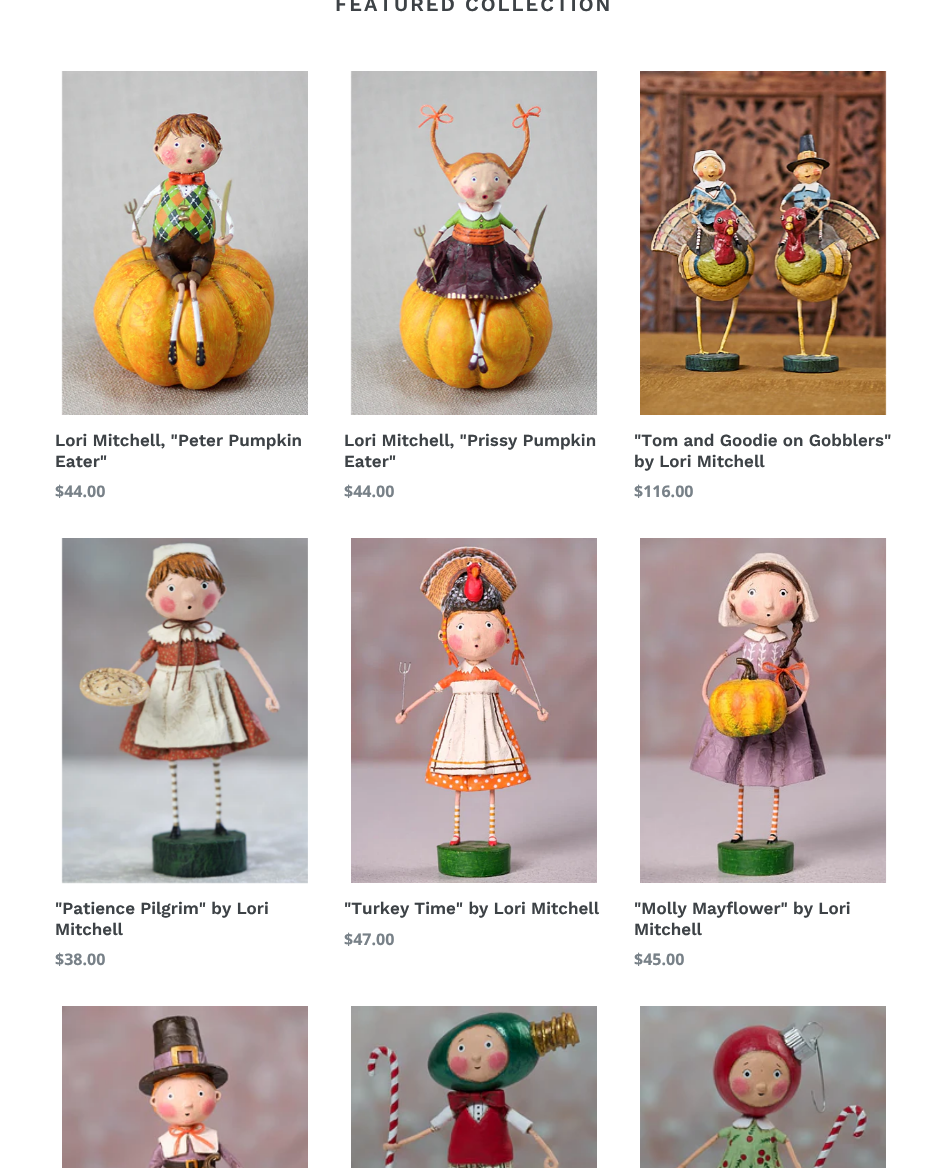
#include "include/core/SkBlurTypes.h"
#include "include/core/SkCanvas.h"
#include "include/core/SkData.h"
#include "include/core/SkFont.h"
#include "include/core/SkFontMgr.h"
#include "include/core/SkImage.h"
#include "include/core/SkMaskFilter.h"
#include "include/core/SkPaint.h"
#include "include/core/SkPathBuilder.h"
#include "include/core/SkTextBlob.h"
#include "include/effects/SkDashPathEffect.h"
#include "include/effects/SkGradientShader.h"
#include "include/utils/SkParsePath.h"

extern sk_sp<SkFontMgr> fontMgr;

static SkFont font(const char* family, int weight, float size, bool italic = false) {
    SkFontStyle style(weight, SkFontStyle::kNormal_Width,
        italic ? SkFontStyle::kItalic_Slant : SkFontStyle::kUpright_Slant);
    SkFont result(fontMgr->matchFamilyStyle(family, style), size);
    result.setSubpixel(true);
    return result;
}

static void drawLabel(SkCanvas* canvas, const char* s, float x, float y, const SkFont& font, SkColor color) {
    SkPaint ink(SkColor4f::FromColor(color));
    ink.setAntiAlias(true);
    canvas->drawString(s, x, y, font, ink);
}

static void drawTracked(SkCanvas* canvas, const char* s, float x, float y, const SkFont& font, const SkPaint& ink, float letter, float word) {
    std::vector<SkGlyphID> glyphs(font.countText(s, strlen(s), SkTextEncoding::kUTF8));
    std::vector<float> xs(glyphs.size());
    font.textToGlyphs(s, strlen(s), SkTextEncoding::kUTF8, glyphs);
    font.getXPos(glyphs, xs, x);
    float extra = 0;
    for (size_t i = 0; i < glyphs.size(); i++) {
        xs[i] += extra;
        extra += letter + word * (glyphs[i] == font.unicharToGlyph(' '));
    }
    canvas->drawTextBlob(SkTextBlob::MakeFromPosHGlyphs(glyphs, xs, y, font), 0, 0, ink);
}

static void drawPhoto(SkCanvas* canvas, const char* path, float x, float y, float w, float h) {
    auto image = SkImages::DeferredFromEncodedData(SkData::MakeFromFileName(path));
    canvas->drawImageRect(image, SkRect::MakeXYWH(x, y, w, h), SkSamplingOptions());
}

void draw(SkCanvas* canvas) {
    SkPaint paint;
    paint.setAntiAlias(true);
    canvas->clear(0xFFFFFFFF);
    SkFont font1 = font("Work Sans", 600, 20);
    paint.setColor(0xFF3D4246);
    drawTracked(canvas, "FEATURED COLLECTION", 335, 11, font1, paint, 2, 0);
    drawPhoto(canvas, "assets/img1.png", 61, 71, 247, 344);
    SkFont font2 = font("Work Sans", 600, 17);
    drawLabel(canvas, "Lori Mitchell, \"Peter Pumpkin", 55, 446, font2, 0xFF3D4246);
    drawLabel(canvas, "Eater\"", 55, 467, font2, 0xFF3D4246);
    SkFont font3 = font("Open Sans", 700, 16);
    drawLabel(canvas, "$44.00", 55, 497, font3, 0xFF788188);
    drawPhoto(canvas, "assets/img2.png", 350, 71, 248, 344);
    drawLabel(canvas, "Lori Mitchell, \"Prissy Pumpkin", 344, 446, font2, 0xFF3D4246);
    drawLabel(canvas, "Eater\"", 344, 467, font2, 0xFF3D4246);
    drawLabel(canvas, "$44.00", 344, 497, font3, 0xFF788188);
    drawPhoto(canvas, "assets/img3.png", 640, 71, 247, 344);
    drawLabel(canvas, "\"Tom and Goodie on Gobblers\"", 634, 446, font2, 0xFF3D4246);
    drawLabel(canvas, "by Lori Mitchell", 634, 467, font2, 0xFF3D4246);
    drawLabel(canvas, "$116.00", 634, 497, font3, 0xFF788188);
    drawPhoto(canvas, "assets/img4.png", 61, 538, 247, 346);
    drawLabel(canvas, "\"Patience Pilgrim\" by Lori", 55, 914, font2, 0xFF3D4246);
    drawLabel(canvas, "Mitchell", 55, 935, font2, 0xFF3D4246);
    drawLabel(canvas, "$38.00", 55, 965, font3, 0xFF788188);
    drawPhoto(canvas, "assets/img5.png", 351, 538, 246, 345);
    drawLabel(canvas, "\"Turkey Time\" by Lori Mitchell", 344, 914, font2, 0xFF3D4246);
    drawLabel(canvas, "$47.00", 344, 945, font3, 0xFF788188);
    drawPhoto(canvas, "assets/img6.png", 640, 538, 247, 345);
    drawLabel(canvas, "\"Molly Mayflower\" by Lori", 634, 914, font2, 0xFF3D4246);
    drawLabel(canvas, "Mitchell", 634, 935, font2, 0xFF3D4246);
    drawLabel(canvas, "$45.00", 634, 965, font3, 0xFF788188);
    drawPhoto(canvas, "assets/img7.png", 62, 1006, 246, 162);
    drawPhoto(canvas, "assets/img8.png", 351, 1006, 246, 162);
    drawPhoto(canvas, "assets/img9.png", 640, 1006, 246, 162);
}
